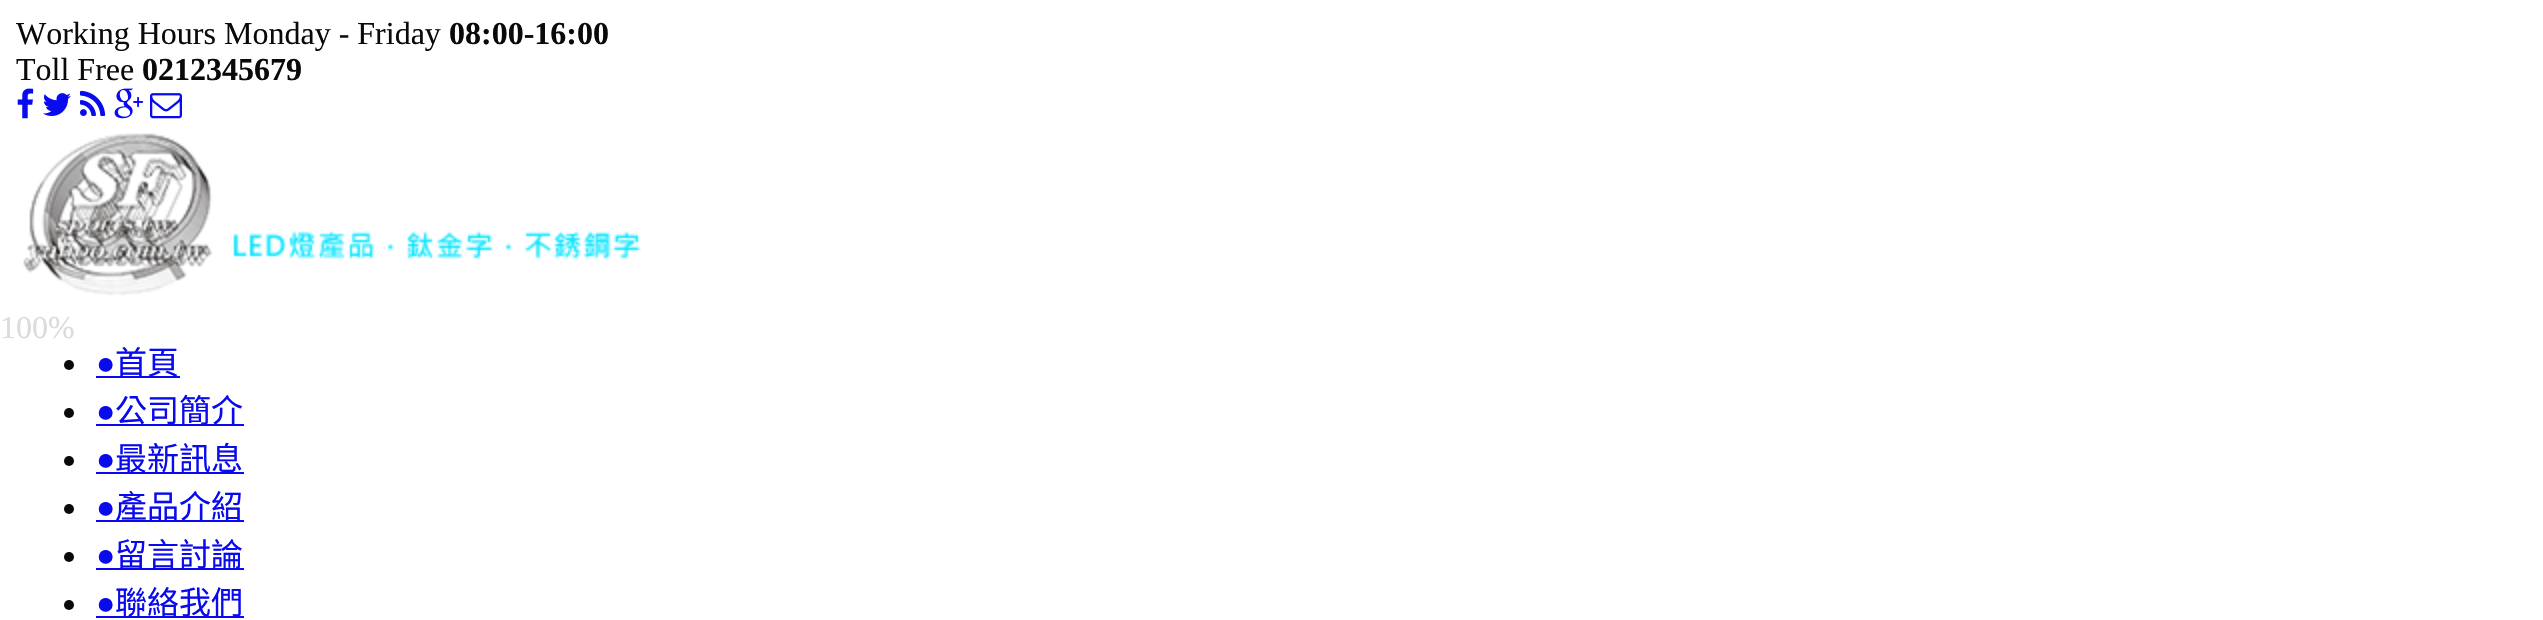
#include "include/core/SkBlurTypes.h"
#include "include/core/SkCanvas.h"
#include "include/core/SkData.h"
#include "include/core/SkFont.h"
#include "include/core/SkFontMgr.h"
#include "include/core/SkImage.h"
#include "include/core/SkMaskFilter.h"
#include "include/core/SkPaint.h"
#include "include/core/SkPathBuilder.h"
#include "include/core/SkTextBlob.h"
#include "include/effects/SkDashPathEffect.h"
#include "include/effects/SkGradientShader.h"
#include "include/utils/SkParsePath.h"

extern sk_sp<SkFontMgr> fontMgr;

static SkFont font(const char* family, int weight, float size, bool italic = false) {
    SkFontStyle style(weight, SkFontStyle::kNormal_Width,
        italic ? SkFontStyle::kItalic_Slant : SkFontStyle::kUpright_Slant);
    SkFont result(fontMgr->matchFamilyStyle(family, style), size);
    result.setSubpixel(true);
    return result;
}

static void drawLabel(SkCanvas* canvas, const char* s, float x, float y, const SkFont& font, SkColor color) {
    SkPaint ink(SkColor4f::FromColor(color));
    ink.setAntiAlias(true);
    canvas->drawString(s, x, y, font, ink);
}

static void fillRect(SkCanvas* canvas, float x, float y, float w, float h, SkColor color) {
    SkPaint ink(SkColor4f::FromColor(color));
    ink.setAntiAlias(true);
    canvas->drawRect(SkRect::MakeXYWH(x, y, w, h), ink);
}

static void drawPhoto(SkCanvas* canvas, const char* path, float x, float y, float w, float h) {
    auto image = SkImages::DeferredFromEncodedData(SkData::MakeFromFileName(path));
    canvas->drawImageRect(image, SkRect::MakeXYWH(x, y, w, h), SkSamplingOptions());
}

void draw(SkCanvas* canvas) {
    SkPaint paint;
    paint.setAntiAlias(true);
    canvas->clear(0xFFFFFFFF);
    SkFont font1 = font("Liberation Serif", 400, 32);
    drawLabel(canvas, "Working Hours Monday - Friday", 16, 44, font1, 0xFF0A0A0A);
    SkFont font2 = font("Liberation Serif", 700, 32);
    drawLabel(canvas, "08:00-16:00", 449, 44, font2, 0xFF0A0A0A);
    drawLabel(canvas, "Toll Free", 16, 80, font1, 0xFF0A0A0A);
    drawLabel(canvas, "0212345679", 142, 80, font2, 0xFF0A0A0A);
    drawPhoto(canvas, "assets/img1.png", 17, 88, 17, 31);
    drawPhoto(canvas, "assets/img2.png", 43, 93, 28, 23);
    drawPhoto(canvas, "assets/img3.png", 80, 90, 26, 26);
    drawPhoto(canvas, "assets/img4.png", 114, 88, 29, 31);
    drawPhoto(canvas, "assets/img5.png", 150, 93, 32, 26);
    drawPhoto(canvas, "assets/img6.png", 23, 133, 618, 163);
    paint.setColor(0xFF0A0A0A);
    canvas->drawCircle(69, 365, 5, paint);
    drawLabel(canvas, "●", 96, 374, font1, 0xFF0A0AEF);
    fillRect(canvas, 96, 376, 84, 2, 0xFF0A0AEF);
    SkFont font3 = font("Noto Sans CJK TC", 400, 32);
    drawLabel(canvas, "首頁", 115, 374, font3, 0xFF0A0AEF);
    canvas->drawCircle(69, 413, 5, paint);
    drawLabel(canvas, "●", 96, 422, font1, 0xFF0A0AEF);
    fillRect(canvas, 96, 424, 148, 2, 0xFF0A0AEF);
    drawLabel(canvas, "公司簡介", 115, 422, font3, 0xFF0A0AEF);
    canvas->drawCircle(69, 461, 5, paint);
    drawLabel(canvas, "●", 96, 470, font1, 0xFF0A0AEF);
    fillRect(canvas, 96, 472, 148, 2, 0xFF0A0AEF);
    drawLabel(canvas, "最新訊息", 115, 470, font3, 0xFF0A0AEF);
    canvas->drawCircle(69, 509, 5, paint);
    drawLabel(canvas, "●", 96, 518, font1, 0xFF0A0AEF);
    fillRect(canvas, 96, 520, 148, 2, 0xFF0A0AEF);
    drawLabel(canvas, "產品介紹", 115, 518, font3, 0xFF0A0AEF);
    canvas->drawCircle(69, 557, 5, paint);
    drawLabel(canvas, "●", 96, 566, font1, 0xFF0A0AEF);
    fillRect(canvas, 96, 568, 148, 2, 0xFF0A0AEF);
    drawLabel(canvas, "留言討論", 115, 566, font3, 0xFF0A0AEF);
    canvas->drawCircle(69, 605, 5, paint);
    drawLabel(canvas, "●", 96, 614, font1, 0xFF0A0AEF);
    fillRect(canvas, 96, 616, 148, 2, 0xFF0A0AEF);
    drawLabel(canvas, "聯絡我們", 115, 614, font3, 0xFF0A0AEF);
    drawLabel(canvas, "100%", 0, 338, font1, 0xFFDBDBDB);
}
